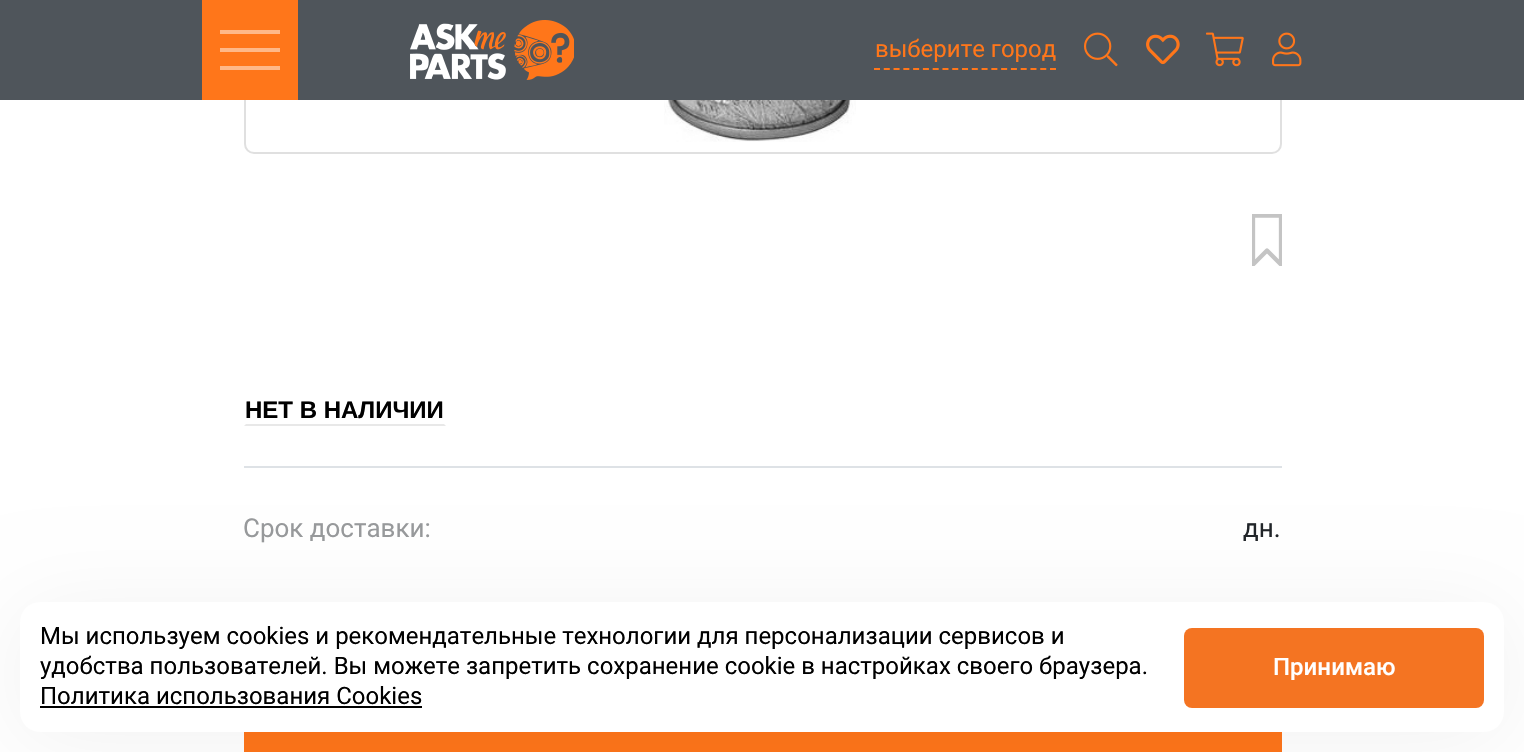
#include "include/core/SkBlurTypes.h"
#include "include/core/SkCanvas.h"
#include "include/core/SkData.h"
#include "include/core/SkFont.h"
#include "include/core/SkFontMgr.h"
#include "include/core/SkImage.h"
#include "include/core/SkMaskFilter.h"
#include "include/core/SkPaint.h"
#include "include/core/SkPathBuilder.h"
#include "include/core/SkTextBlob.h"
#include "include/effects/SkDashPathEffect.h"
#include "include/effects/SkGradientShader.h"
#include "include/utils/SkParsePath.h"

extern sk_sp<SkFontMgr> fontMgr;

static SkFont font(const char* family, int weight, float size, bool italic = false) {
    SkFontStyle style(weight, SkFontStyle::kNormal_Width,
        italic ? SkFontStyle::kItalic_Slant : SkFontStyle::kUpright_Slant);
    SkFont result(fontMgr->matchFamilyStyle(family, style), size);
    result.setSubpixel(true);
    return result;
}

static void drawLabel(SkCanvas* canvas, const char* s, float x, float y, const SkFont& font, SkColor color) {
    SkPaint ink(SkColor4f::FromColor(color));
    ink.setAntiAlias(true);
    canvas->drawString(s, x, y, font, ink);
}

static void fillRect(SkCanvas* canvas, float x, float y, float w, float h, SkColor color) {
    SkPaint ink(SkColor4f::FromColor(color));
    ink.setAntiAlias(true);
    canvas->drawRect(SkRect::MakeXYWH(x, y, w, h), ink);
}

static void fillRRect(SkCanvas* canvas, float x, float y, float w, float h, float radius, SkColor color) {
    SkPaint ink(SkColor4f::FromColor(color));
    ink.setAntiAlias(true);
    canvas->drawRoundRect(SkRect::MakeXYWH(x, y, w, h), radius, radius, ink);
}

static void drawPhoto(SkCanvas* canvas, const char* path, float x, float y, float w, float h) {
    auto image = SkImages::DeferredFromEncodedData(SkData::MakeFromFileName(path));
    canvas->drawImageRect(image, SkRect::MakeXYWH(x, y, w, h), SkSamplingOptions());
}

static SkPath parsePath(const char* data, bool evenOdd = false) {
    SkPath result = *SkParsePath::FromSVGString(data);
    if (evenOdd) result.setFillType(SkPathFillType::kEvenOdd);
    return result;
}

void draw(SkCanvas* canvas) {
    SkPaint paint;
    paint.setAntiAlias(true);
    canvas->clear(0xFFFFFFFF);
    drawPhoto(canvas, "assets/img6.png", 664, 100, 192, 42);
    paint.setStroke(true);
    paint.setStrokeWidth(2);
    paint.setColor(0xFFE0E0E0);
    canvas->drawRoundRect(SkRect::MakeXYWH(245, -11, 1036, 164), 9, 9, paint);
    fillRect(canvas, 0, 0, 1524, 100, 0xFF4F555B);
    fillRect(canvas, 202, 0, 96, 100, 0xFFFF761A);
    fillRect(canvas, 220, 30, 60, 4, 0xFFFFB888);
    fillRect(canvas, 220, 48, 60, 4, 0xFFFFB888);
    fillRect(canvas, 220, 66, 60, 4, 0xFFFFB888);
    drawPhoto(canvas, "assets/img1.png", 410, 20, 164, 60);
    paint.setColor(0xFFFF761A);
    paint.setPathEffect(SkDashPathEffect::Make({{6, 3.78f}}, 0));
    canvas->drawPath(parsePath("M874 69H1056"), paint);
    paint.setPathEffect(nullptr);
    SkFont font1 = font("Roboto", 400, 24);
    drawLabel(canvas, "выберите город", 875, 57, font1, 0xFFFF761A);
    drawPhoto(canvas, "assets/img2.png", 1084, 32, 34, 35);
    drawPhoto(canvas, "assets/img3.png", 1146, 34, 34, 31);
    drawPhoto(canvas, "assets/img4.png", 1206, 32, 38, 35);
    drawPhoto(canvas, "assets/img5.png", 1272, 32, 30, 35);
    canvas->save();
    canvas->clipRect(SkRect::MakeXYWH(1252, 214, 30, 52));
    paint.setStrokeWidth(4.3f);
    paint.setStrokeCap(SkPaint::kRound_Cap);
    paint.setStrokeJoin(SkPaint::kRound_Join);
    paint.setColor(0xFFC4C4C4);
    canvas->drawPath(parsePath("M1281 264.5L1267 250.5L1253 264.5V215.5H1281Z"), paint);
    canvas->restore();
    fillRect(canvas, 244, 466, 1038, 2, 0xFFDEE2E6);
    paint.setStroke(false);
    paint.setColor(0xFFE8E8E8);
    canvas->drawPath(parsePath("M446 426H244L246 424H444Z"), paint);
    SkFont font2 = font("Liberation Sans", 700, 24);
    drawLabel(canvas, "НЕТ В НАЛИЧИИ", 245, 418, font2, 0xFF000000);
    SkFont font3 = font("Roboto", 400, 26);
    drawLabel(canvas, "Срок доставки:", 243, 537, font3, 0xFF989A9C);
    drawLabel(canvas, "дн.", 1243, 537, font3, 0xFF212529);
    fillRect(canvas, 244, 732, 1038, 20, 0xFFFF751A);
    paint.setColor(0x0D000000);
    paint.setMaskFilter(SkMaskFilter::MakeBlur(kNormal_SkBlurStyle, 43.5f));
    canvas->drawRoundRect(SkRect::MakeXYWH(20, 610, 1484, 130), 20, 20, paint);
    paint.setMaskFilter(nullptr);
    fillRRect(canvas, 20, 602, 1484, 130, 20, 0xFFFFFFFF);
    drawLabel(canvas, "Мы используем cookies и рекомендательные технологии для персонализации сервисов и", 40, 644, font1, 0xFF000000);
    drawLabel(canvas, "удобства пользователей. Вы можете запретить сохранение cookie в настройках своего браузера.", 40, 674, font1, 0xFF000000);
    drawLabel(canvas, "Политика использования Cookies", 40, 704, font1, 0xFF000000);
    fillRect(canvas, 40, 706, 382, 2, 0xFF000000);
    fillRRect(canvas, 1184, 628, 300, 80, 8, 0xFFF47422);
    SkFont font4 = font("Roboto", 500, 24);
    drawLabel(canvas, "Принимаю", 1273, 675, font4, 0xFFFFFFFF);
}
